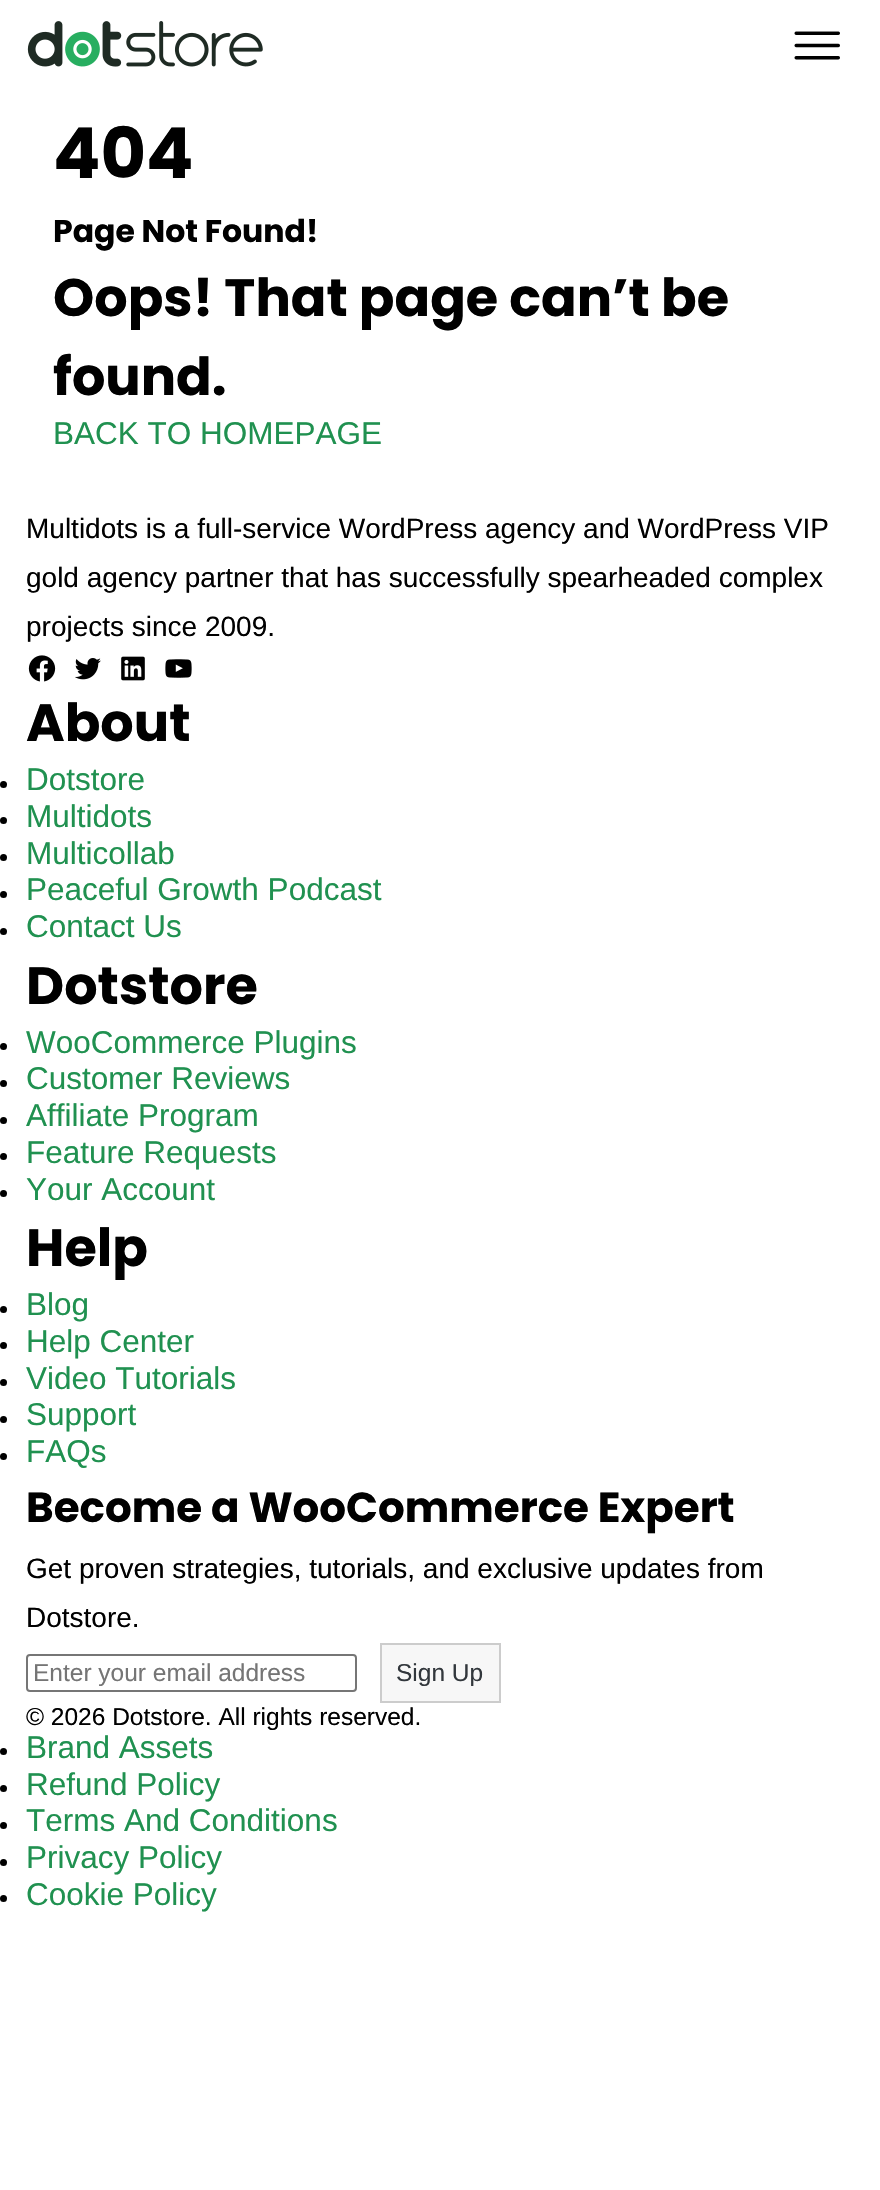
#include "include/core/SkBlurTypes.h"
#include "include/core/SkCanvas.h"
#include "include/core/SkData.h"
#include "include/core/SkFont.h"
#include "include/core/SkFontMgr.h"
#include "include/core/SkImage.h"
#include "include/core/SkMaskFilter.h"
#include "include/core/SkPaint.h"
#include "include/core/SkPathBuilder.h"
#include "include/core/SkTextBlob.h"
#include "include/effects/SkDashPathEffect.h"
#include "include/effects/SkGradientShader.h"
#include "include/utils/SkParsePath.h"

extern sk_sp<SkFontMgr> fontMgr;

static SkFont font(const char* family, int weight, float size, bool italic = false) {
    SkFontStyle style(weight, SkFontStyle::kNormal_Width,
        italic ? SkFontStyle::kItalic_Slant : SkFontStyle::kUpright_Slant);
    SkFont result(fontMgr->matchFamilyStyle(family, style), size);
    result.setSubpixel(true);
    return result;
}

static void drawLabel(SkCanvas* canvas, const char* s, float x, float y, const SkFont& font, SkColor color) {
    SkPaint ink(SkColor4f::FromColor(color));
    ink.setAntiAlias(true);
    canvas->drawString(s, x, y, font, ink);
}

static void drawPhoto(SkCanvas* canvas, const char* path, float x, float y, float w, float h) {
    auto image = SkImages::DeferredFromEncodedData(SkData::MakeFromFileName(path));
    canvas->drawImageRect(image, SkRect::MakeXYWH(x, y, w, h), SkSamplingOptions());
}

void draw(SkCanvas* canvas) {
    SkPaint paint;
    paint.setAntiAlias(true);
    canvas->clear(0xFFFFFFFF);
    drawPhoto(canvas, "assets/img1.png", 27, 21, 236, 46);
    drawPhoto(canvas, "assets/img2.png", 794, 31, 46, 29);
    SkFont font1 = font("Poppins", 700, 70);
    drawLabel(canvas, "404", 53, 178, font1, 0xFF000000);
    SkFont font2 = font("Poppins", 700, 31.5f);
    drawLabel(canvas, "Page Not Found!", 53, 242, font2, 0xFF000000);
    SkFont font3 = font("Poppins", 700, 52.5f);
    drawLabel(canvas, "Oops! That page can’t be", 53, 316, font3, 0xFF000000);
    drawLabel(canvas, "found.", 53, 395, font3, 0xFF000000);
    SkFont font4 = font("Liberation Sans", 400, 31.5f);
    drawLabel(canvas, "BACK TO HOMEPAGE", 53, 444, font4, 0xFF209150);
    SkFont font5 = font("Liberation Sans", 400, 28);
    drawLabel(canvas, "Multidots is a full-service WordPress agency and WordPress VIP", 26, 538, font5, 0xFF000000);
    drawLabel(canvas, "gold agency partner that has successfully spearheaded complex", 26, 587, font5, 0xFF000000);
    drawLabel(canvas, "projects since 2009.", 26, 636, font5, 0xFF000000);
    drawPhoto(canvas, "assets/img3.png", 28, 655, 28, 27);
    drawPhoto(canvas, "assets/img4.png", 75, 658, 26, 22);
    drawPhoto(canvas, "assets/img5.png", 121, 656, 24, 25);
    drawPhoto(canvas, "assets/img6.png", 165, 659, 27, 19);
    drawLabel(canvas, "About", 26, 741, font3, 0xFF000000);
    paint.setColor(0xFF000000);
    canvas->drawCircle(3.5f, 784.5f, 3.5f, paint);
    drawLabel(canvas, "Dotstore", 26, 790, font4, 0xFF209150);
    canvas->drawCircle(3.5f, 820.5f, 3.5f, paint);
    drawLabel(canvas, "Multidots", 26, 827, font4, 0xFF209150);
    canvas->drawCircle(3.5f, 857.5f, 3.5f, paint);
    drawLabel(canvas, "Multicollab", 26, 864, font4, 0xFF209150);
    canvas->drawCircle(3.5f, 894.5f, 3.5f, paint);
    drawLabel(canvas, "Peaceful Growth Podcast", 26, 900, font4, 0xFF209150);
    canvas->drawCircle(3.5f, 931.5f, 3.5f, paint);
    drawLabel(canvas, "Contact Us", 26, 937, font4, 0xFF209150);
    drawLabel(canvas, "Dotstore", 26, 1004, font3, 0xFF000000);
    canvas->drawCircle(3.5f, 1046.5f, 3.5f, paint);
    drawLabel(canvas, "WooCommerce Plugins", 26, 1053, font4, 0xFF209150);
    canvas->drawCircle(3.5f, 1083.5f, 3.5f, paint);
    drawLabel(canvas, "Customer Reviews", 26, 1089, font4, 0xFF209150);
    canvas->drawCircle(3.5f, 1120.5f, 3.5f, paint);
    drawLabel(canvas, "Affiliate Program", 26, 1126, font4, 0xFF209150);
    canvas->drawCircle(3.5f, 1156.5f, 3.5f, paint);
    drawLabel(canvas, "Feature Requests", 26, 1163, font4, 0xFF209150);
    canvas->drawCircle(3.5f, 1193.5f, 3.5f, paint);
    drawLabel(canvas, "Your Account", 26, 1200, font4, 0xFF209150);
    drawLabel(canvas, "Help", 26, 1266, font3, 0xFF000000);
    canvas->drawCircle(3.5f, 1309.5f, 3.5f, paint);
    drawLabel(canvas, "Blog", 26, 1315, font4, 0xFF209150);
    canvas->drawCircle(3.5f, 1345.5f, 3.5f, paint);
    drawLabel(canvas, "Help Center", 26, 1352, font4, 0xFF209150);
    canvas->drawCircle(3.5f, 1382.5f, 3.5f, paint);
    drawLabel(canvas, "Video Tutorials", 26, 1389, font4, 0xFF209150);
    canvas->drawCircle(3.5f, 1419.5f, 3.5f, paint);
    drawLabel(canvas, "Support", 26, 1425, font4, 0xFF209150);
    canvas->drawCircle(3.5f, 1456.5f, 3.5f, paint);
    drawLabel(canvas, "FAQs", 26, 1462, font4, 0xFF209150);
    SkFont font6 = font("Poppins", 700, 42);
    drawLabel(canvas, "Become a WooCommerce Expert", 26, 1522, font6, 0xFF000000);
    drawLabel(canvas, "Get proven strategies, tutorials, and exclusive updates from", 26, 1578, font5, 0xFF000000);
    drawLabel(canvas, "Dotstore.", 26, 1627, font5, 0xFF000000);
    paint.setStroke(true);
    paint.setStrokeWidth(2);
    paint.setColor(0xFF767676);
    canvas->drawRoundRect(SkRect::MakeXYWH(27, 1655, 329, 36), 3, 3, paint);
    SkFont font7 = font("Liberation Sans", 400, 24.5f);
    drawLabel(canvas, "Enter your email address", 33, 1681, font7, 0xFF757575);
    paint.setStroke(false);
    paint.setColor(0xFFF7F7F7);
    canvas->drawRect(SkRect::MakeXYWH(381, 1644, 119, 58), paint);
    paint.setStroke(true);
    paint.setColor(0xFFCCCCCC);
    canvas->drawRect(SkRect::MakeXYWH(381, 1644, 119, 58), paint);
    drawLabel(canvas, "Sign Up", 396, 1681, font7, 0xFF32373C);
    drawLabel(canvas, "© 2026 Dotstore. All rights reserved.", 26, 1725, font7, 0xFF000000);
    paint.setStroke(false);
    paint.setColor(0xFF000000);
    canvas->drawCircle(3.5f, 1751.5f, 3.5f, paint);
    drawLabel(canvas, "Brand Assets", 26, 1758, font4, 0xFF209150);
    canvas->drawCircle(3.5f, 1788.5f, 3.5f, paint);
    drawLabel(canvas, "Refund Policy", 26, 1795, font4, 0xFF209150);
    canvas->drawCircle(3.5f, 1825.5f, 3.5f, paint);
    drawLabel(canvas, "Terms And Conditions", 26, 1831, font4, 0xFF209150);
    canvas->drawCircle(3.5f, 1862.5f, 3.5f, paint);
    drawLabel(canvas, "Privacy Policy", 26, 1868, font4, 0xFF209150);
    canvas->drawCircle(3.5f, 1898.5f, 3.5f, paint);
    drawLabel(canvas, "Cookie Policy", 26, 1905, font4, 0xFF209150);
}
